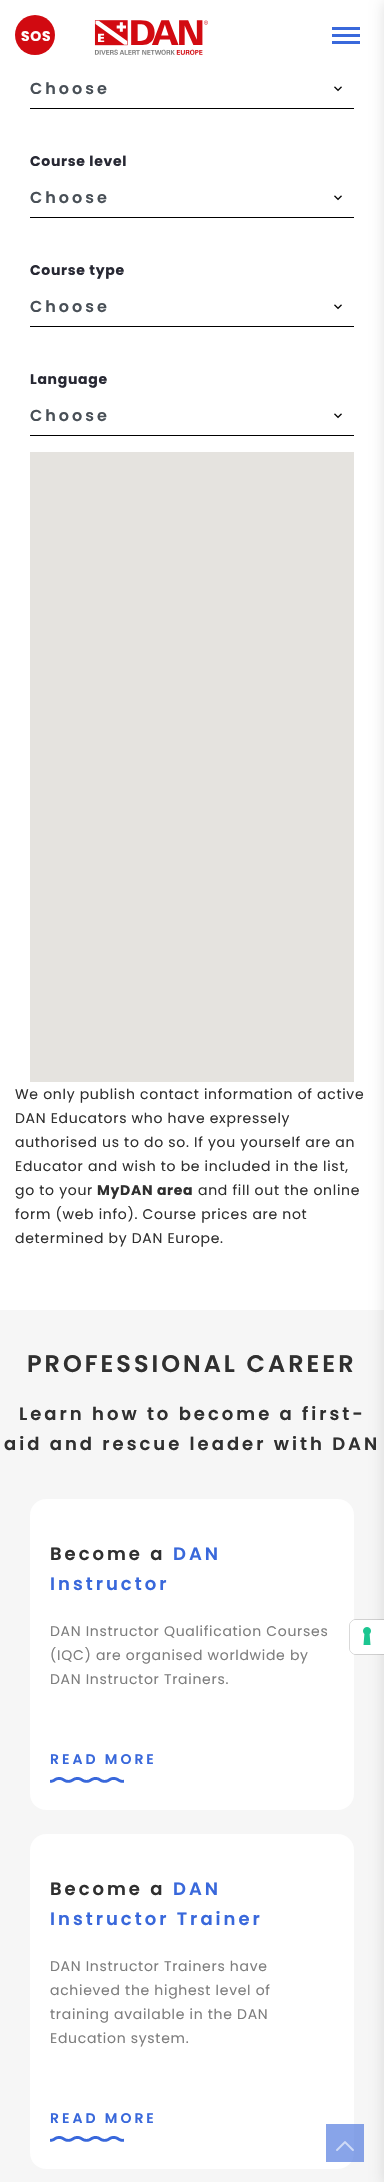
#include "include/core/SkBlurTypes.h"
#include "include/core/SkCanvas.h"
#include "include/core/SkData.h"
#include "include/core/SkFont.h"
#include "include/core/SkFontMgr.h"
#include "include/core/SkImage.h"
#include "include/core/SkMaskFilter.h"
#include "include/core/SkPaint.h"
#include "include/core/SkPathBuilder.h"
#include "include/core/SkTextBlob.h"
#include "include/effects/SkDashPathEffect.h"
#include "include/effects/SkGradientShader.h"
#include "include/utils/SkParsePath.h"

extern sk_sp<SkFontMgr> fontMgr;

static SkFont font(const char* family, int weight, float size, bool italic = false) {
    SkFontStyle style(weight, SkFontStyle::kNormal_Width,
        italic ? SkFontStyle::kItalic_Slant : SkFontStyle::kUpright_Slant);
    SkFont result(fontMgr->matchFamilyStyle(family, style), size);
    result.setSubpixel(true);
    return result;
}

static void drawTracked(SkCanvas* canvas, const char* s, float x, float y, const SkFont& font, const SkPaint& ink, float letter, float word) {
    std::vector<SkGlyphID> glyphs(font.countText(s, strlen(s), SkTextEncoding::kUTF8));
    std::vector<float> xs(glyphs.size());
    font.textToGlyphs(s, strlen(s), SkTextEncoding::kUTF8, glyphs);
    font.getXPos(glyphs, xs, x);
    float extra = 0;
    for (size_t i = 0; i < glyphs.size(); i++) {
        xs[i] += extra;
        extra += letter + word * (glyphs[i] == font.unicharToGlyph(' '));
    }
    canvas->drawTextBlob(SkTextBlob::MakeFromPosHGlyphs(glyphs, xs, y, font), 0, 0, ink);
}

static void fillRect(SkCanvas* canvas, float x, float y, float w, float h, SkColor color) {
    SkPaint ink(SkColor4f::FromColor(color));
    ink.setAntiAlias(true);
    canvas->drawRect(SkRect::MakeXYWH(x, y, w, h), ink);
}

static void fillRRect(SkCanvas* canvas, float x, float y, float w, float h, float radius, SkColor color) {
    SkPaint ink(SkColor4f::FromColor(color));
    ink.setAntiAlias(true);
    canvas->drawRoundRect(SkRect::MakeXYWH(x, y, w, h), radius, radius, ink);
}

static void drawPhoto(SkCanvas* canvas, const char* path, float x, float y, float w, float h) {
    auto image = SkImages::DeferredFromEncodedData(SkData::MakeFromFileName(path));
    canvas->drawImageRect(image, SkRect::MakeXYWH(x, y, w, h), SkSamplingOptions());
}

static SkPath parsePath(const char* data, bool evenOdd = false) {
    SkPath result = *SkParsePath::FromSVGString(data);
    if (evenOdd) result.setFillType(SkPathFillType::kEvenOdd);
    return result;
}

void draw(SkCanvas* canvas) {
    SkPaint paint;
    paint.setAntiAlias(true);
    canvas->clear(0xFFFFFFFF);
    paint.setColor(0xFFD10A11);
    canvas->drawCircle(35, 35, 20, paint);
    SkFont font1 = font("Poppins", 700, 14);
    paint.setColor(0xFFFFFFFF);
    drawTracked(canvas, "SOS", 21, 41, font1, paint, 0.7f, 0);
    drawPhoto(canvas, "assets/img1.png", 94, 20, 114, 35);
    drawPhoto(canvas, "assets/img2.png", 332, 27, 28, 17);
    fillRect(canvas, 0, 1310, 384, 872, 0xFFF6F6F6);
    paint.setColor(0x1F000000);
    paint.setMaskFilter(SkMaskFilter::MakeBlur(kNormal_SkBlurStyle, 7));
    canvas->drawRect(SkRect::MakeXYWH(384, 2, 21, 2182), paint);
    paint.setMaskFilter(nullptr);
    drawPhoto(canvas, "assets/img3.png", 334, 86, 8, 6);
    fillRect(canvas, 30, 108, 324, 1, 0xFF000000);
    SkFont font2 = font("Poppins", 600, 16);
    paint.setColor(0xFF495057);
    drawTracked(canvas, "Choose", 30, 94, font2, paint, 3, 0);
    paint.setColor(0xFF272833);
    drawTracked(canvas, "Course level", 30, 166, font1, paint, 0.7f, 0);
    drawPhoto(canvas, "assets/img3.png", 334, 195, 8, 6);
    fillRect(canvas, 30, 217, 324, 1, 0xFF000000);
    paint.setColor(0xFF495057);
    drawTracked(canvas, "Choose", 30, 203, font2, paint, 3, 0);
    paint.setColor(0xFF272833);
    drawTracked(canvas, "Course type", 30, 275, font1, paint, 0.7f, 0);
    drawPhoto(canvas, "assets/img3.png", 334, 304, 8, 6);
    fillRect(canvas, 30, 326, 324, 1, 0xFF000000);
    paint.setColor(0xFF495057);
    drawTracked(canvas, "Choose", 30, 312, font2, paint, 3, 0);
    paint.setColor(0xFF272833);
    drawTracked(canvas, "Language", 30, 384, font1, paint, 0.7f, 0);
    drawPhoto(canvas, "assets/img3.png", 334, 413, 8, 6);
    fillRect(canvas, 30, 435, 324, 1, 0xFF000000);
    paint.setColor(0xFF495057);
    drawTracked(canvas, "Choose", 30, 421, font2, paint, 3, 0);
    fillRect(canvas, 30, 452, 324, 630, 0xFFE5E3DF);
    SkFont font3 = font("Poppins", 400, 14);
    paint.setColor(0xFF303030);
    drawTracked(canvas, "We only publish contact information of active", 15, 1099, font3, paint, 0.7f, 0);
    drawTracked(canvas, "DAN Educators who have expressely", 15, 1123, font3, paint, 0.7f, 0);
    drawTracked(canvas, "authorised us to do so. If you yourself are an", 15, 1147, font3, paint, 0.7f, 0);
    drawTracked(canvas, "Educator and wish to be included in the list,", 15, 1171, font3, paint, 0.7f, 0);
    drawTracked(canvas, "go to your", 15, 1195, font3, paint, 0.7f, 0);
    drawTracked(canvas, "MyDAN area", 97, 1195, font1, paint, 0.7f, 0);
    drawTracked(canvas, "and fill out the online", 198, 1195, font3, paint, 0.7f, 0);
    drawTracked(canvas, "form (web info). Course prices are not", 15, 1219, font3, paint, 0.7f, 0);
    drawTracked(canvas, "determined by DAN Europe.", 15, 1243, font3, paint, 0.7f, 0);
    SkFont font4 = font("Poppins", 600, 24);
    drawTracked(canvas, "PROFESSIONAL CAREER", 27, 1372, font4, paint, 3, 0);
    SkFont font5 = font("Poppins", 600, 18);
    drawTracked(canvas, "Learn how to become a first-", 19, 1420, font5, paint, 3, 0);
    drawTracked(canvas, "aid and rescue leader with DAN", 4, 1450, font5, paint, 3, 0);
    fillRRect(canvas, 30, 1499, 324, 311, 16, 0xFFFFFFFF);
    drawTracked(canvas, "Become a", 50, 1560, font5, paint, 3, 0);
    paint.setColor(0xFF3968DB);
    drawTracked(canvas, "DAN", 173, 1560, font5, paint, 3, 0);
    drawTracked(canvas, "Instructor", 50, 1590, font5, paint, 3, 0);
    paint.setColor(0xFF7E7E7E);
    drawTracked(canvas, "DAN Instructor Qualification Courses", 50, 1636, font3, paint, 0.7f, 0);
    drawTracked(canvas, "(IQC) are organised worldwide by", 50, 1660, font3, paint, 0.7f, 0);
    drawTracked(canvas, "DAN Instructor Trainers.", 50, 1684, font3, paint, 0.7f, 0);
    SkFont font6 = font("Poppins", 600, 14);
    paint.setColor(0xFF3968DB);
    drawTracked(canvas, "READ MORE", 50, 1764, font6, paint, 3, 0);
    drawPhoto(canvas, "assets/img4.png", 50, 1777, 74, 6);
    fillRRect(canvas, 30, 1834, 324, 335, 16, 0xFFFFFFFF);
    paint.setColor(0xFF303030);
    drawTracked(canvas, "Become a", 50, 1895, font5, paint, 3, 0);
    paint.setColor(0xFF3968DB);
    drawTracked(canvas, "DAN", 173, 1895, font5, paint, 3, 0);
    drawTracked(canvas, "Instructor Trainer", 50, 1925, font5, paint, 3, 0);
    paint.setColor(0xFF7E7E7E);
    drawTracked(canvas, "DAN Instructor Trainers have", 50, 1971, font3, paint, 0.7f, 0);
    drawTracked(canvas, "achieved the highest level of", 50, 1995, font3, paint, 0.7f, 0);
    drawTracked(canvas, "training available in the DAN", 50, 2019, font3, paint, 0.7f, 0);
    drawTracked(canvas, "Education system.", 50, 2043, font3, paint, 0.7f, 0);
    paint.setColor(0xFF3968DB);
    drawTracked(canvas, "READ MORE", 50, 2123, font6, paint, 3, 0);
    drawPhoto(canvas, "assets/img4.png", 50, 2136, 74, 6);
    fillRect(canvas, 326, 2124, 38, 38, 0x993968DB);
    drawPhoto(canvas, "assets/img5.png", 336, 2141, 18, 10);
    paint.setStroke(true);
    paint.setStrokeWidth(1);
    paint.setColor(0x26000000);
    canvas->drawPath(parsePath("M356 1619.5H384.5V1654.5H356C352.5 1654.5 349.5 1651.5 349.5 1648V1626C349.5 1622.5 352.5 1619.5 356 1619.5Z"), paint);
    paint.setStroke(false);
    paint.setColor(0xFFFFFFFF);
    canvas->drawPath(parsePath("M356 1620H384V1654H356C352.5 1654 350 1651.5 350 1648V1626C350 1622.5 352.5 1620 356 1620Z"), paint);
    drawPhoto(canvas, "assets/img6.png", 363, 1627, 8, 18);
}
